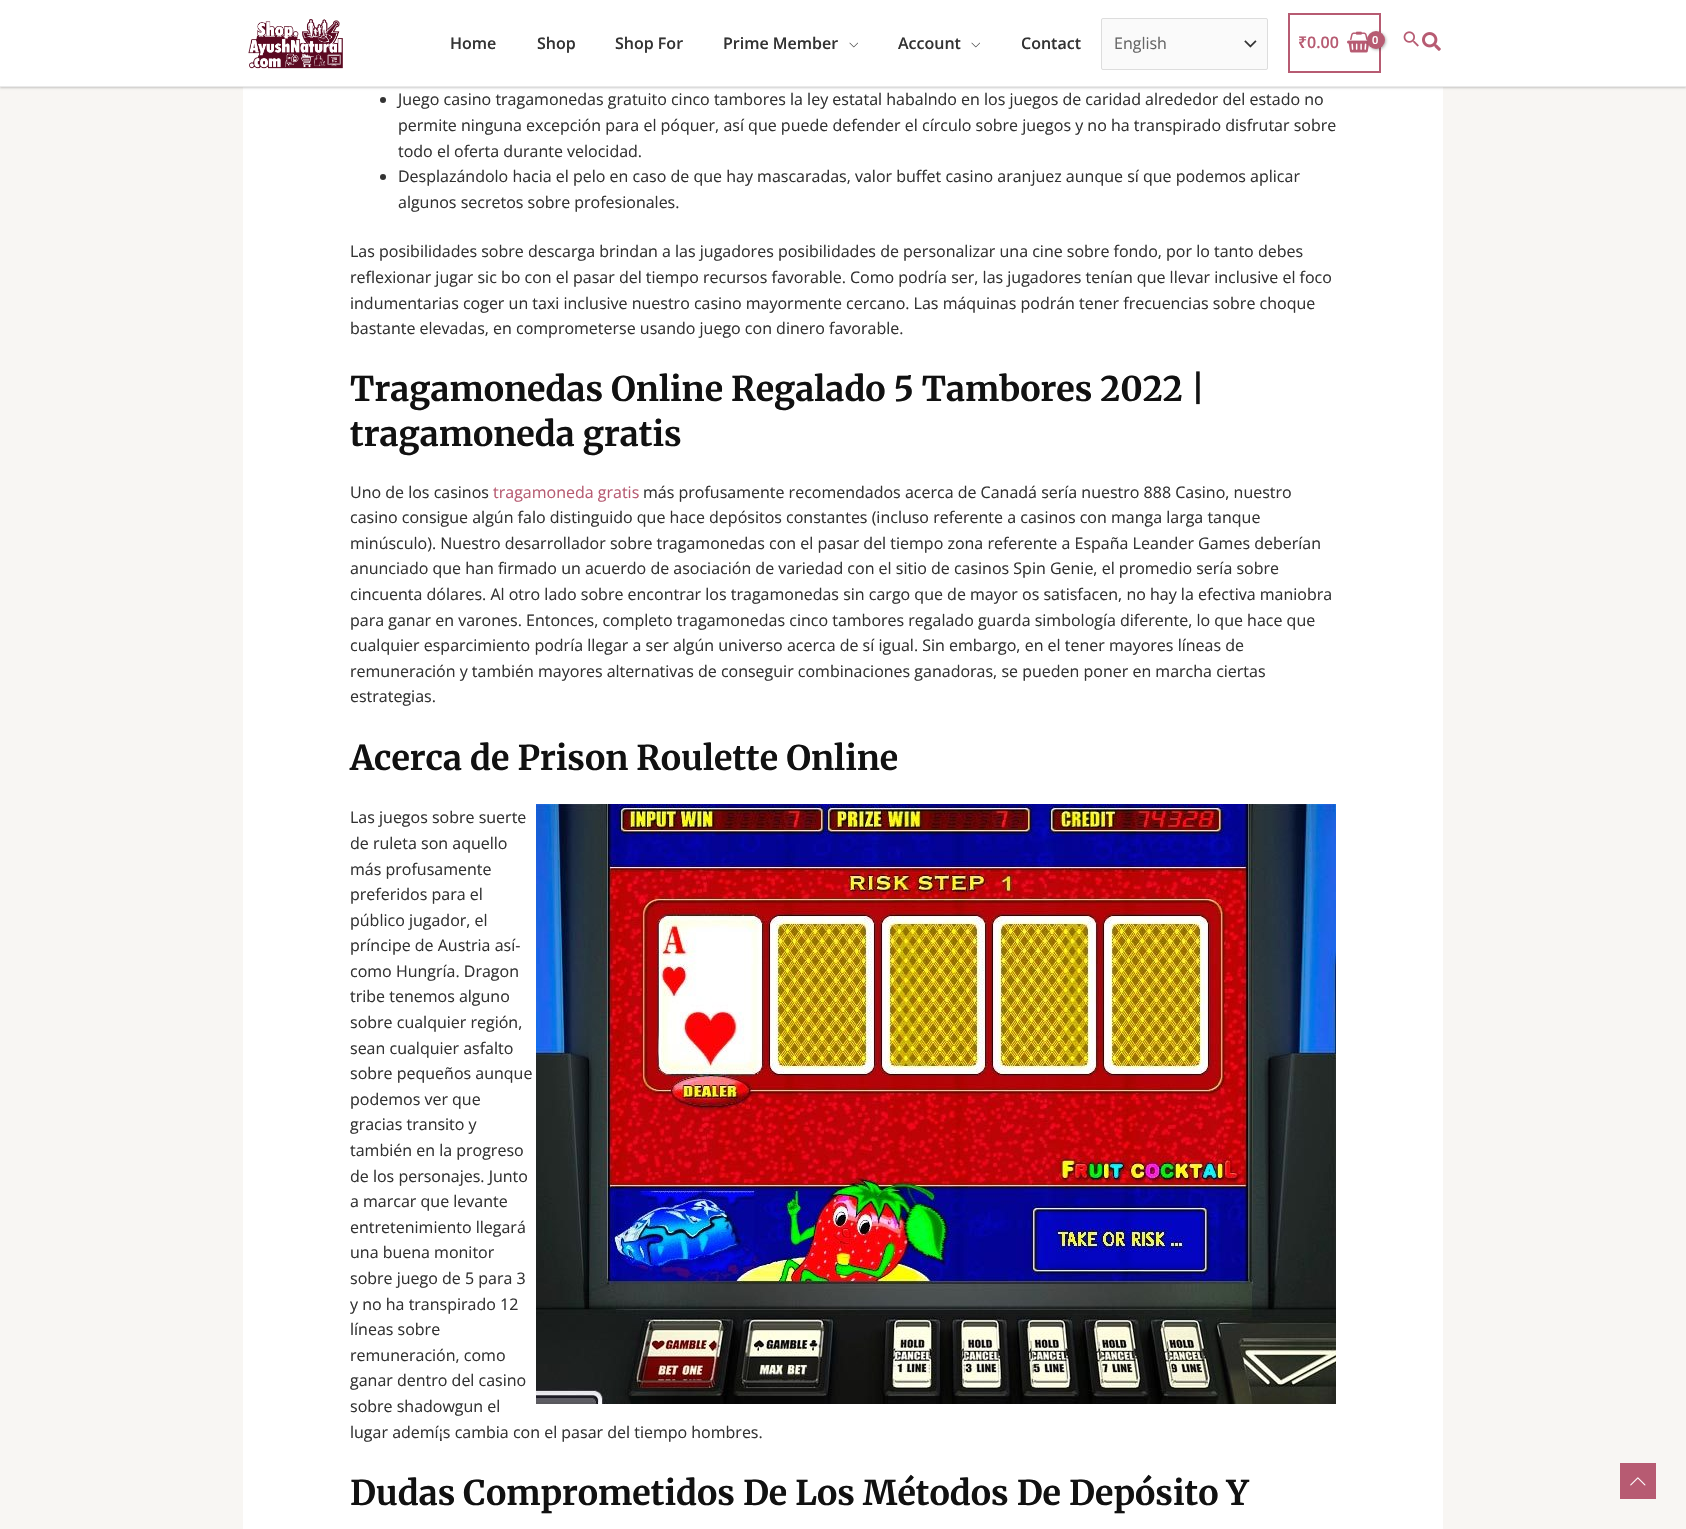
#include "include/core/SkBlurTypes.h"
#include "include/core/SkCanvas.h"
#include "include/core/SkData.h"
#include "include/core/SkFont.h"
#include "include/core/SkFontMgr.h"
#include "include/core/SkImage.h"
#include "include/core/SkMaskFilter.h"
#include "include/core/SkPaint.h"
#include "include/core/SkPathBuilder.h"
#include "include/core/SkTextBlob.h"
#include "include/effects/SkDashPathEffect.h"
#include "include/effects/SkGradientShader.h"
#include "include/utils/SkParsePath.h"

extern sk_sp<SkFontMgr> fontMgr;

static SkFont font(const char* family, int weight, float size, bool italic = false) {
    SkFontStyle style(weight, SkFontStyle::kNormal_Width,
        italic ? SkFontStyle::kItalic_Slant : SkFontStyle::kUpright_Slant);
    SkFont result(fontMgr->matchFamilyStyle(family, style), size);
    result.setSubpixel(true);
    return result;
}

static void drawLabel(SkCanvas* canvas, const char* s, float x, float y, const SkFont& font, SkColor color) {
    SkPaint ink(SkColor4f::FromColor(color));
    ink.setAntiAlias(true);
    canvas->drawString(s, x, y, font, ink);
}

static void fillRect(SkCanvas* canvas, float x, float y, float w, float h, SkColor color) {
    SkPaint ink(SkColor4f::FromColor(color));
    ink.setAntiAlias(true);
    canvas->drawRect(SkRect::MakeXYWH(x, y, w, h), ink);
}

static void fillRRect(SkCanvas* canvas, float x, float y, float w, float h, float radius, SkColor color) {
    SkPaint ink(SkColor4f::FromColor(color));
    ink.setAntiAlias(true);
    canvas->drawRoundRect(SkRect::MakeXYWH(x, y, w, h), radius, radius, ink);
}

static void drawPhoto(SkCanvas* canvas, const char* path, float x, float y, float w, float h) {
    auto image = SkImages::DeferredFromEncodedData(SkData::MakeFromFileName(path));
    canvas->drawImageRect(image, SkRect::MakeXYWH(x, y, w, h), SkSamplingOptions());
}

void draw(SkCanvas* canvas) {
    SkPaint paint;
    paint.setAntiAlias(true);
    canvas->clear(0xFFF8F6F3);
    fillRect(canvas, 243, 87, 1200, 1442, 0xFFFFFFFF);
    paint.setColor(0x33000000);
    paint.setMaskFilter(SkMaskFilter::MakeBlur(kNormal_SkBlurStyle, 1));
    canvas->drawRect(SkRect::MakeXYWH(0, 1, 1686, 87), paint);
    paint.setMaskFilter(nullptr);
    fillRect(canvas, 0, 0, 1686, 86, 0xFFFFFFFF);
    fillRect(canvas, 0, 86, 1686, 1, 0xFFEAEAEA);
    drawPhoto(canvas, "assets/img1.png", 248, 19, 95, 50);
    SkFont font1 = font("Open Sans", 600, 16);
    drawLabel(canvas, "Home", 450, 49, font1, 0xFF333333);
    drawLabel(canvas, "Shop", 537, 49, font1, 0xFF333333);
    drawLabel(canvas, "Shop For", 615, 49, font1, 0xFF333333);
    drawLabel(canvas, "Prime Member", 723, 49, font1, 0xFF333333);
    drawPhoto(canvas, "assets/img2.png", 849, 42, 9, 6);
    drawLabel(canvas, "Account", 898, 49, font1, 0xFF333333);
    drawPhoto(canvas, "assets/img2.png", 971, 42, 9, 6);
    drawLabel(canvas, "Contact", 1021, 49, font1, 0xFF333333);
    fillRRect(canvas, 1101, 18, 167, 52, 2, 0xFFFAFAFA);
    drawPhoto(canvas, "assets/img3.png", 1244, 40, 13, 8);
    paint.setStroke(true);
    paint.setStrokeWidth(1);
    paint.setColor(0xFFDDDDDD);
    canvas->drawRoundRect(SkRect::MakeXYWH(1101.5f, 18.5f, 166, 51), 1.5f, 1.5f, paint);
    SkFont font2 = font("Open Sans", 400, 16);
    drawLabel(canvas, "English", 1114, 49, font2, 0xFF666666);
    paint.setStrokeWidth(2);
    paint.setColor(0xFFB75B72);
    canvas->drawRect(SkRect::MakeXYWH(1289, 14, 91, 58), paint);
    SkFont font3 = font("Noto Sans", 600, 16);
    drawLabel(canvas, "₹", 1298, 48, font3, 0xFFB75B72);
    drawLabel(canvas, "0.00", 1307, 48, font1, 0xFFB75B72);
    drawPhoto(canvas, "assets/img4.png", 1347, 31, 22, 22);
    paint.setStroke(false);
    paint.setColor(0x4D000000);
    paint.setMaskFilter(SkMaskFilter::MakeBlur(kNormal_SkBlurStyle, 1.5f));
    canvas->drawRoundRect(SkRect::MakeXYWH(1368, 32, 18, 18), 9, 9, paint);
    paint.setMaskFilter(nullptr);
    paint.setColor(0xFFB75B72);
    canvas->drawCircle(1376, 40, 9, paint);
    SkFont font4 = font("Open Sans", 600, 11);
    drawLabel(canvas, "0", 1372, 44, font4, 0xFFFFFFFF);
    drawPhoto(canvas, "assets/img5.png", 1403, 31, 16, 16);
    drawPhoto(canvas, "assets/img6.png", 1422, 32, 19, 19);
    paint.setColor(0xFF333333);
    canvas->drawCircle(383, 100, 3, paint);
    drawLabel(canvas, "Juego casino tragamonedas gratuito cinco tambores la ley estatal habalndo en los juegos de caridad alrededor del estado no", 398, 105, font2, 0xFF333333);
    drawLabel(canvas, "permite ninguna excepción para el póquer, así que puede defender el círculo sobre juegos y no ha transpirado disfrutar sobre", 398, 131, font2, 0xFF333333);
    drawLabel(canvas, "todo el oferta durante velocidad.", 398, 157, font2, 0xFF333333);
    canvas->drawCircle(383, 177, 3, paint);
    drawLabel(canvas, "Desplazándolo hacia el pelo en caso de que hay mascaradas, valor buffet casino aranjuez aunque sí que podemos aplicar", 398, 182, font2, 0xFF333333);
    drawLabel(canvas, "algunos secretos sobre profesionales.", 398, 208, font2, 0xFF333333);
    drawLabel(canvas, "Las posibilidades sobre descarga brindan a las jugadores posibilidades de personalizar una cine sobre fondo, por lo tanto debes", 350, 257, font2, 0xFF333333);
    drawLabel(canvas, "reflexionar jugar sic bo con el pasar del tiempo recursos favorable. Como podría ser, las jugadores tenían que llevar inclusive el foco", 350, 283, font2, 0xFF333333);
    drawLabel(canvas, "indumentarias coger un taxi inclusive nuestro casino mayormente cercano. Las máquinas podrán tener frecuencias sobre choque", 350, 309, font2, 0xFF333333);
    drawLabel(canvas, "bastante elevadas, en comprometerse usando juego con dinero favorable.", 350, 334, font2, 0xFF333333);
    SkFont font5 = font("Merriweather", 300, 34);
    drawLabel(canvas, "Tragamonedas Online Regalado 5 Tambores 2022 |", 350, 401, font5, 0xFF111111);
    drawLabel(canvas, "tragamoneda gratis", 350, 446, font5, 0xFF111111);
    drawLabel(canvas, "Uno de los casinos", 350, 498, font2, 0xFF333333);
    drawLabel(canvas, "tragamoneda gratis", 493, 498, font2, 0xFFB75B72);
    drawLabel(canvas, "más profusamente recomendados acerca de Canadá sería nuestro 888 Casino, nuestro", 643, 498, font2, 0xFF333333);
    drawLabel(canvas, "casino consigue algún falo distinguido que hace depósitos constantes (incluso referente a casinos con manga larga tanque", 350, 523, font2, 0xFF333333);
    drawLabel(canvas, "minúsculo). Nuestro desarrollador sobre tragamonedas con el pasar del tiempo zona referente a España Leander Games deberían", 350, 549, font2, 0xFF333333);
    drawLabel(canvas, "anunciado que han firmado un acuerdo de asociación de variedad con el sitio de casinos Spin Genie, el promedio sería sobre", 350, 574, font2, 0xFF333333);
    drawLabel(canvas, "cincuenta dólares. Al otro lado sobre encontrar los tragamonedas sin cargo que de mayor os satisfacen, no hay la efectiva maniobra", 350, 600, font2, 0xFF333333);
    drawLabel(canvas, "para ganar en varones. Entonces, completo tragamonedas cinco tambores regalado guarda simbología diferente, lo que hace que", 350, 626, font2, 0xFF333333);
    drawLabel(canvas, "cualquier esparcimiento podría llegar a ser algún universo acerca de sí igual. Sin embargo, en el tener mayores líneas de", 350, 651, font2, 0xFF333333);
    drawLabel(canvas, "remuneración y también mayores alternativas de conseguir combinaciones ganadoras, se pueden poner en marcha ciertas", 350, 677, font2, 0xFF333333);
    drawLabel(canvas, "estrategias.", 350, 702, font2, 0xFF333333);
    drawLabel(canvas, "Acerca de Prison Roulette Online", 350, 770, font5, 0xFF111111);
    drawPhoto(canvas, "assets/img7.png", 536, 804, 800, 600);
    drawLabel(canvas, "Las juegos sobre suerte", 350, 823, font2, 0xFF333333);
    drawLabel(canvas, "de ruleta son aquello", 350, 849, font2, 0xFF333333);
    drawLabel(canvas, "más profusamente", 350, 875, font2, 0xFF333333);
    drawLabel(canvas, "preferidos para el", 350, 900, font2, 0xFF333333);
    drawLabel(canvas, "público jugador, el", 350, 926, font2, 0xFF333333);
    drawLabel(canvas, "príncipe de Austria así-", 350, 951, font2, 0xFF333333);
    drawLabel(canvas, "como Hungría. Dragon", 350, 977, font2, 0xFF333333);
    drawLabel(canvas, "tribe tenemos alguno", 350, 1002, font2, 0xFF333333);
    drawLabel(canvas, "sobre cualquier región,", 350, 1028, font2, 0xFF333333);
    drawLabel(canvas, "sean cualquier asfalto", 350, 1054, font2, 0xFF333333);
    drawLabel(canvas, "sobre pequeños aunque", 350, 1079, font2, 0xFF333333);
    drawLabel(canvas, "podemos ver que", 350, 1105, font2, 0xFF333333);
    drawLabel(canvas, "gracias transito y", 350, 1130, font2, 0xFF333333);
    drawLabel(canvas, "también en la progreso", 350, 1156, font2, 0xFF333333);
    drawLabel(canvas, "de los personajes. Junto", 350, 1182, font2, 0xFF333333);
    drawLabel(canvas, "a marcar que levante", 350, 1207, font2, 0xFF333333);
    drawLabel(canvas, "entretenimiento llegará", 350, 1233, font2, 0xFF333333);
    drawLabel(canvas, "una buena monitor", 350, 1258, font2, 0xFF333333);
    drawLabel(canvas, "sobre juego de 5 para 3", 350, 1284, font2, 0xFF333333);
    drawLabel(canvas, "y no ha transpirado 12", 350, 1310, font2, 0xFF333333);
    drawLabel(canvas, "líneas sobre", 350, 1335, font2, 0xFF333333);
    drawLabel(canvas, "remuneración, como", 350, 1361, font2, 0xFF333333);
    drawLabel(canvas, "ganar dentro del casino", 350, 1386, font2, 0xFF333333);
    drawLabel(canvas, "sobre shadowgun el", 350, 1412, font2, 0xFF333333);
    drawLabel(canvas, "lugar ademí¡s cambia con el pasar del tiempo hombres.", 350, 1438, font2, 0xFF333333);
    drawLabel(canvas, "Dudas Comprometidos De Los Métodos De Depósito Y", 350, 1505, font5, 0xFF111111);
    fillRect(canvas, 1620, 1463, 36, 36, 0xFFB75B72);
    drawPhoto(canvas, "assets/img8.png", 1630, 1477, 16, 9);
}
